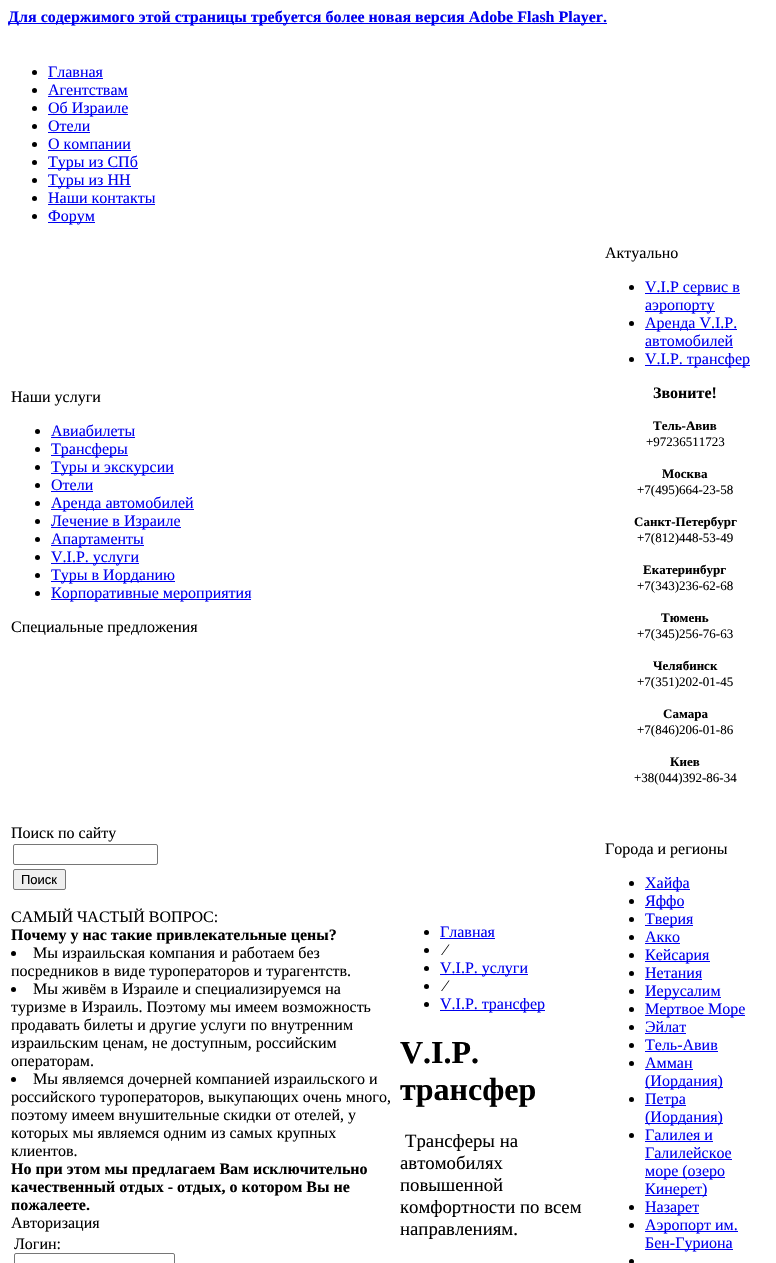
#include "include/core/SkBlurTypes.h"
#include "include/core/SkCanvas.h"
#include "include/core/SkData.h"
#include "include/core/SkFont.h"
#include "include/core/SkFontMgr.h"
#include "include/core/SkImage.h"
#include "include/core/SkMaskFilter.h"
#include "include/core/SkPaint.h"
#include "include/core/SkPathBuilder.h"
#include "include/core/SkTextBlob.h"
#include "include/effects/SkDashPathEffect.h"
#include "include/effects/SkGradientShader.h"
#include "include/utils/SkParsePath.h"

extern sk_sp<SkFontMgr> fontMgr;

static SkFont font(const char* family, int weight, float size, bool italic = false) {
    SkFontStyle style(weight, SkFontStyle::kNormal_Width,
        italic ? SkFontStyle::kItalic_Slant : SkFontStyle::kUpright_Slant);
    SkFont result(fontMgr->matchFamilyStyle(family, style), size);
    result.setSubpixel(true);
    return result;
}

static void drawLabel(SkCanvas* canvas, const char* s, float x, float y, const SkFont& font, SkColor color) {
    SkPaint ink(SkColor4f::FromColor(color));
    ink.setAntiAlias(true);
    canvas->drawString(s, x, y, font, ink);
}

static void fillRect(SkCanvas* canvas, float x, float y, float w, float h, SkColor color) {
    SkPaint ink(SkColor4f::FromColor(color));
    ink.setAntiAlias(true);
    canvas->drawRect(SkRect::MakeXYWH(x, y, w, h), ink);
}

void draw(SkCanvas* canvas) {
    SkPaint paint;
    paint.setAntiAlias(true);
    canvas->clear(0xFFFFFFFF);
    fillRect(canvas, 8, 23, 599, 1, 0xFF0000EE);
    SkFont font1 = font("Liberation Serif", 700, 16);
    drawLabel(canvas, "Для содержимого этой страницы требуется более новая версия Adobe Flash Player.", 8, 22, font1, 0xFF0000EE);
    paint.setColor(0xFF000000);
    canvas->drawCircle(34.5f, 72.5f, 2.5f, paint);
    SkFont font2 = font("Liberation Serif", 400, 16);
    drawLabel(canvas, "Главная", 48, 77, font2, 0xFF0000EE);
    fillRect(canvas, 48, 78, 55, 1, 0xFF0000EE);
    canvas->drawCircle(34.5f, 90.5f, 2.5f, paint);
    drawLabel(canvas, "Агентствам", 48, 95, font2, 0xFF0000EE);
    fillRect(canvas, 48, 96, 80, 1, 0xFF0000EE);
    canvas->drawCircle(34.5f, 108.5f, 2.5f, paint);
    fillRect(canvas, 48, 114, 80, 1, 0xFF0000EE);
    drawLabel(canvas, "Об Израиле", 48, 113, font2, 0xFF0000EE);
    canvas->drawCircle(34.5f, 126.5f, 2.5f, paint);
    drawLabel(canvas, "Отели", 48, 131, font2, 0xFF0000EE);
    fillRect(canvas, 48, 132, 42, 1, 0xFF0000EE);
    canvas->drawCircle(34.5f, 144.5f, 2.5f, paint);
    drawLabel(canvas, "О компании", 48, 149, font2, 0xFF0000EE);
    fillRect(canvas, 48, 150, 83, 1, 0xFF0000EE);
    canvas->drawCircle(34.5f, 162.5f, 2.5f, paint);
    fillRect(canvas, 48, 168, 90, 1, 0xFF0000EE);
    drawLabel(canvas, "Туры из СПб", 48, 167, font2, 0xFF0000EE);
    canvas->drawCircle(34.5f, 180.5f, 2.5f, paint);
    fillRect(canvas, 48, 186, 83, 1, 0xFF0000EE);
    drawLabel(canvas, "Туры из НН", 48, 185, font2, 0xFF0000EE);
    canvas->drawCircle(34.5f, 198.5f, 2.5f, paint);
    drawLabel(canvas, "Наши контакты", 48, 203, font2, 0xFF0000EE);
    fillRect(canvas, 48, 204, 107, 1, 0xFF0000EE);
    canvas->drawCircle(34.5f, 216.5f, 2.5f, paint);
    fillRect(canvas, 48, 222, 47, 1, 0xFF0000EE);
    drawLabel(canvas, "Форум", 48, 221, font2, 0xFF0000EE);
    drawLabel(canvas, "Наши услуги", 11, 402, font2, 0xFF000000);
    canvas->drawCircle(37.5f, 431.5f, 2.5f, paint);
    drawLabel(canvas, "Авиабилеты", 51, 436, font2, 0xFF0000EE);
    fillRect(canvas, 51, 437, 84, 1, 0xFF0000EE);
    canvas->drawCircle(37.5f, 449.5f, 2.5f, paint);
    fillRect(canvas, 51, 455, 77, 1, 0xFF0000EE);
    drawLabel(canvas, "Трансферы", 51, 454, font2, 0xFF0000EE);
    canvas->drawCircle(37.5f, 467.5f, 2.5f, paint);
    fillRect(canvas, 51, 473, 123, 1, 0xFF0000EE);
    drawLabel(canvas, "Туры и экскурсии", 51, 472, font2, 0xFF0000EE);
    canvas->drawCircle(37.5f, 485.5f, 2.5f, paint);
    drawLabel(canvas, "Отели", 51, 490, font2, 0xFF0000EE);
    fillRect(canvas, 51, 491, 42, 1, 0xFF0000EE);
    canvas->drawCircle(37.5f, 503.5f, 2.5f, paint);
    fillRect(canvas, 51, 509, 143, 1, 0xFF0000EE);
    drawLabel(canvas, "Аренда автомобилей", 51, 508, font2, 0xFF0000EE);
    canvas->drawCircle(37.5f, 521.5f, 2.5f, paint);
    fillRect(canvas, 51, 527, 130, 1, 0xFF0000EE);
    drawLabel(canvas, "Лечение в Израиле", 51, 526, font2, 0xFF0000EE);
    canvas->drawCircle(37.5f, 539.5f, 2.5f, paint);
    fillRect(canvas, 51, 545, 93, 1, 0xFF0000EE);
    drawLabel(canvas, "Aпартаменты", 51, 544, font2, 0xFF0000EE);
    canvas->drawCircle(37.5f, 557.5f, 2.5f, paint);
    fillRect(canvas, 51, 563, 88, 1, 0xFF0000EE);
    drawLabel(canvas, "V.I.P. услуги", 51, 562, font2, 0xFF0000EE);
    canvas->drawCircle(37.5f, 575.5f, 2.5f, paint);
    fillRect(canvas, 51, 581, 124, 1, 0xFF0000EE);
    drawLabel(canvas, "Туры в Иорданию", 51, 580, font2, 0xFF0000EE);
    canvas->drawCircle(37.5f, 593.5f, 2.5f, paint);
    fillRect(canvas, 51, 599, 200, 1, 0xFF0000EE);
    drawLabel(canvas, "Корпоративные мероприятия", 51, 598, font2, 0xFF0000EE);
    drawLabel(canvas, "Специальные предложения", 11, 632, font2, 0xFF000000);
    drawLabel(canvas, "Поиск по сайту", 11, 838, font2, 0xFF000000);
    paint.setStroke(true);
    paint.setStrokeWidth(1);
    paint.setColor(0xFF767676);
    canvas->drawRoundRect(SkRect::MakeXYWH(13.5f, 844.5f, 144, 20), 1.5f, 1.5f, paint);
    paint.setStroke(false);
    paint.setColor(0xFFEFEFEF);
    canvas->drawRoundRect(SkRect::MakeXYWH(13.5f, 869.5f, 52, 20), 1.5f, 1.5f, paint);
    paint.setStroke(true);
    paint.setColor(0xFF767676);
    canvas->drawRoundRect(SkRect::MakeXYWH(13.5f, 869.5f, 52, 20), 1.5f, 1.5f, paint);
    SkFont font3 = font("Liberation Sans", 400, 13);
    drawLabel(canvas, "Поиск", 21, 884, font3, 0xFF000000);
    drawLabel(canvas, "САМЫЙ ЧАСТЫЙ ВОПРОС:", 11, 922, font2, 0xFF000000);
    drawLabel(canvas, "Почему у нас такие привлекательные цены?", 11, 940, font1, 0xFF000000);
    paint.setStroke(false);
    paint.setColor(0xFF000000);
    canvas->drawCircle(13.5f, 953.5f, 2.5f, paint);
    drawLabel(canvas, "Мы израильская компания и работаем без", 33, 958, font2, 0xFF000000);
    drawLabel(canvas, "посредников в виде туроператоров и турагентств.", 11, 976, font2, 0xFF000000);
    canvas->drawCircle(13.5f, 989.5f, 2.5f, paint);
    drawLabel(canvas, "Мы живём в Израиле и специализируемся на", 33, 994, font2, 0xFF000000);
    drawLabel(canvas, "туризме в Израиль. Поэтому мы имеем возможность", 11, 1012, font2, 0xFF000000);
    drawLabel(canvas, "продавать билеты и другие услуги по внутренним", 11, 1030, font2, 0xFF000000);
    drawLabel(canvas, "израильским ценам, не доступным, российским", 11, 1048, font2, 0xFF000000);
    drawLabel(canvas, "операторам.", 11, 1066, font2, 0xFF000000);
    canvas->drawCircle(13.5f, 1079.5f, 2.5f, paint);
    drawLabel(canvas, "Мы являемся дочерней компанией израильского и", 33, 1084, font2, 0xFF000000);
    drawLabel(canvas, "российского туроператоров, выкупающих очень много,", 11, 1102, font2, 0xFF000000);
    drawLabel(canvas, "поэтому имеем внушительные скидки от отелей, у", 11, 1120, font2, 0xFF000000);
    drawLabel(canvas, "которых мы являемся одним из самых крупных", 11, 1138, font2, 0xFF000000);
    drawLabel(canvas, "клиентов.", 11, 1156, font2, 0xFF000000);
    drawLabel(canvas, "Но при этом мы предлагаем Вам исключительно", 11, 1174, font1, 0xFF000000);
    drawLabel(canvas, "качественный отдых - отдых, о котором Вы не", 11, 1192, font1, 0xFF000000);
    drawLabel(canvas, "пожалеете.", 11, 1210, font1, 0xFF000000);
    drawLabel(canvas, "Авторизация", 11, 1228, font2, 0xFF000000);
    drawLabel(canvas, "Логин:", 14, 1249, font2, 0xFF000000);
    paint.setStroke(true);
    paint.setColor(0xFF767676);
    canvas->drawRoundRect(SkRect::MakeXYWH(14.5f, 1253.5f, 160, 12), 1.5f, 1.5f, paint);
    paint.setStroke(false);
    paint.setColor(0xFF000000);
    canvas->drawCircle(426.5f, 932.5f, 2.5f, paint);
    drawLabel(canvas, "Главная", 440, 937, font2, 0xFF0000EE);
    fillRect(canvas, 440, 938, 55, 1, 0xFF0000EE);
    canvas->drawCircle(426.5f, 950.5f, 2.5f, paint);
    drawLabel(canvas, "⁄", 444, 955, font2, 0xFF000000);
    canvas->drawCircle(426.5f, 968.5f, 2.5f, paint);
    fillRect(canvas, 440, 974, 88, 1, 0xFF0000EE);
    drawLabel(canvas, "V.I.P. услуги", 440, 973, font2, 0xFF0000EE);
    canvas->drawCircle(426.5f, 986.5f, 2.5f, paint);
    drawLabel(canvas, "⁄", 444, 991, font2, 0xFF000000);
    canvas->drawCircle(426.5f, 1004.5f, 2.5f, paint);
    fillRect(canvas, 440, 1010, 105, 1, 0xFF0000EE);
    drawLabel(canvas, "V.I.P. трансфер", 440, 1009, font2, 0xFF0000EE);
    SkFont font4 = font("Liberation Serif", 700, 32);
    drawLabel(canvas, "V.I.P.", 400, 1063, font4, 0xFF000000);
    drawLabel(canvas, "трансфер", 400, 1100, font4, 0xFF000000);
    SkFont font5 = font("Liberation Serif", 400, 18.75f);
    drawLabel(canvas, "Трансферы на", 405, 1147, font5, 0xFF000000);
    drawLabel(canvas, "автомобилях", 400, 1169, font5, 0xFF000000);
    drawLabel(canvas, "повышенной", 400, 1191, font5, 0xFF000000);
    drawLabel(canvas, "комфортности по всем", 400, 1213, font5, 0xFF000000);
    drawLabel(canvas, "направлениям.", 400, 1235, font5, 0xFF000000);
    drawLabel(canvas, "Актуально", 605, 258, font2, 0xFF000000);
    canvas->drawCircle(631.5f, 287.5f, 2.5f, paint);
    fillRect(canvas, 645, 293, 95, 1, 0xFF0000EE);
    drawLabel(canvas, "V.I.P сервис в", 645, 292, font2, 0xFF0000EE);
    fillRect(canvas, 645, 311, 70, 1, 0xFF0000EE);
    drawLabel(canvas, "аэропорту", 645, 310, font2, 0xFF0000EE);
    canvas->drawCircle(631.5f, 323.5f, 2.5f, paint);
    fillRect(canvas, 645, 329, 92, 1, 0xFF0000EE);
    drawLabel(canvas, "Аренда V.I.P.", 645, 328, font2, 0xFF0000EE);
    drawLabel(canvas, "автомобилей", 645, 346, font2, 0xFF0000EE);
    fillRect(canvas, 645, 347, 88, 1, 0xFF0000EE);
    canvas->drawCircle(631.5f, 359.5f, 2.5f, paint);
    fillRect(canvas, 645, 365, 105, 1, 0xFF0000EE);
    drawLabel(canvas, "V.I.P. трансфер", 645, 364, font2, 0xFF0000EE);
    drawLabel(canvas, "Звоните!", 653, 398, font1, 0xFF000000);
    SkFont font6 = font("Liberation Serif", 700, 13);
    drawLabel(canvas, "Тель-Авив", 653, 430, font6, 0xFF000000);
    SkFont font7 = font("Liberation Serif", 400, 13);
    drawLabel(canvas, "+97236511723", 646, 446, font7, 0xFF000000);
    drawLabel(canvas, "Москва", 662, 478, font6, 0xFF000000);
    drawLabel(canvas, "+7(495)664-23-58", 637, 494, font7, 0xFF000000);
    drawLabel(canvas, "Санкт-Петербург", 634, 526, font6, 0xFF000000);
    drawLabel(canvas, "+7(812)448-53-49", 637, 542, font7, 0xFF000000);
    drawLabel(canvas, "Екатеринбург", 643, 574, font6, 0xFF000000);
    drawLabel(canvas, "+7(343)236-62-68", 637, 590, font7, 0xFF000000);
    drawLabel(canvas, "Тюмень", 661, 622, font6, 0xFF000000);
    drawLabel(canvas, "+7(345)256-76-63", 637, 638, font7, 0xFF000000);
    drawLabel(canvas, "Челябинск", 653, 670, font6, 0xFF000000);
    drawLabel(canvas, "+7(351)202-01-45", 637, 686, font7, 0xFF000000);
    drawLabel(canvas, "Самара", 663, 718, font6, 0xFF000000);
    drawLabel(canvas, "+7(846)206-01-86", 637, 734, font7, 0xFF000000);
    drawLabel(canvas, "Киев", 670, 766, font6, 0xFF000000);
    drawLabel(canvas, "+38(044)392-86-34", 634, 782, font7, 0xFF000000);
    drawLabel(canvas, "Города и регионы", 605, 854, font2, 0xFF000000);
    canvas->drawCircle(631.5f, 883.5f, 2.5f, paint);
    fillRect(canvas, 645, 889, 45, 1, 0xFF0000EE);
    drawLabel(canvas, "Хайфа", 645, 888, font2, 0xFF0000EE);
    canvas->drawCircle(631.5f, 901.5f, 2.5f, paint);
    fillRect(canvas, 645, 907, 39, 1, 0xFF0000EE);
    drawLabel(canvas, "Яффо", 645, 906, font2, 0xFF0000EE);
    canvas->drawCircle(631.5f, 919.5f, 2.5f, paint);
    fillRect(canvas, 645, 925, 48, 1, 0xFF0000EE);
    drawLabel(canvas, "Тверия", 645, 924, font2, 0xFF0000EE);
    canvas->drawCircle(631.5f, 937.5f, 2.5f, paint);
    drawLabel(canvas, "Акко", 645, 942, font2, 0xFF0000EE);
    fillRect(canvas, 645, 943, 35, 1, 0xFF0000EE);
    canvas->drawCircle(631.5f, 955.5f, 2.5f, paint);
    fillRect(canvas, 645, 961, 65, 1, 0xFF0000EE);
    drawLabel(canvas, "Кейсария", 645, 960, font2, 0xFF0000EE);
    canvas->drawCircle(631.5f, 973.5f, 2.5f, paint);
    drawLabel(canvas, "Нетания", 645, 978, font2, 0xFF0000EE);
    fillRect(canvas, 645, 979, 57, 1, 0xFF0000EE);
    canvas->drawCircle(631.5f, 991.5f, 2.5f, paint);
    fillRect(canvas, 645, 997, 76, 1, 0xFF0000EE);
    drawLabel(canvas, "Иерусалим", 645, 996, font2, 0xFF0000EE);
    canvas->drawCircle(631.5f, 1009.5f, 2.5f, paint);
    fillRect(canvas, 645, 1015, 100, 1, 0xFF0000EE);
    drawLabel(canvas, "Мертвое Море", 645, 1014, font2, 0xFF0000EE);
    canvas->drawCircle(631.5f, 1027.5f, 2.5f, paint);
    drawLabel(canvas, "Эйлат", 645, 1032, font2, 0xFF0000EE);
    fillRect(canvas, 645, 1033, 41, 1, 0xFF0000EE);
    canvas->drawCircle(631.5f, 1045.5f, 2.5f, paint);
    drawLabel(canvas, "Тель-Авив", 645, 1050, font2, 0xFF0000EE);
    fillRect(canvas, 645, 1051, 73, 1, 0xFF0000EE);
    canvas->drawCircle(631.5f, 1063.5f, 2.5f, paint);
    drawLabel(canvas, "Амман", 645, 1068, font2, 0xFF0000EE);
    fillRect(canvas, 645, 1069, 48, 1, 0xFF0000EE);
    fillRect(canvas, 645, 1087, 78, 1, 0xFF0000EE);
    drawLabel(canvas, "(Иордания)", 645, 1086, font2, 0xFF0000EE);
    canvas->drawCircle(631.5f, 1099.5f, 2.5f, paint);
    fillRect(canvas, 645, 1105, 41, 1, 0xFF0000EE);
    drawLabel(canvas, "Петра", 645, 1104, font2, 0xFF0000EE);
    fillRect(canvas, 645, 1123, 78, 1, 0xFF0000EE);
    drawLabel(canvas, "(Иордания)", 645, 1122, font2, 0xFF0000EE);
    canvas->drawCircle(631.5f, 1135.5f, 2.5f, paint);
    drawLabel(canvas, "Галилея и", 645, 1140, font2, 0xFF0000EE);
    fillRect(canvas, 645, 1141, 68, 1, 0xFF0000EE);
    drawLabel(canvas, "Галилейское", 645, 1158, font2, 0xFF0000EE);
    fillRect(canvas, 645, 1159, 87, 1, 0xFF0000EE);
    fillRect(canvas, 645, 1177, 80, 1, 0xFF0000EE);
    drawLabel(canvas, "море (озеро", 645, 1176, font2, 0xFF0000EE);
    fillRect(canvas, 645, 1195, 62, 1, 0xFF0000EE);
    drawLabel(canvas, "Кинерет)", 645, 1194, font2, 0xFF0000EE);
    canvas->drawCircle(631.5f, 1207.5f, 2.5f, paint);
    fillRect(canvas, 645, 1213, 54, 1, 0xFF0000EE);
    drawLabel(canvas, "Назарет", 645, 1212, font2, 0xFF0000EE);
    canvas->drawCircle(631.5f, 1225.5f, 2.5f, paint);
    fillRect(canvas, 645, 1231, 93, 1, 0xFF0000EE);
    drawLabel(canvas, "Аэропорт им.", 645, 1230, font2, 0xFF0000EE);
    fillRect(canvas, 645, 1249, 88, 1, 0xFF0000EE);
    drawLabel(canvas, "Бен-Гуриона", 645, 1248, font2, 0xFF0000EE);
    canvas->drawCircle(631.5f, 1261.5f, 2.5f, paint);
}
